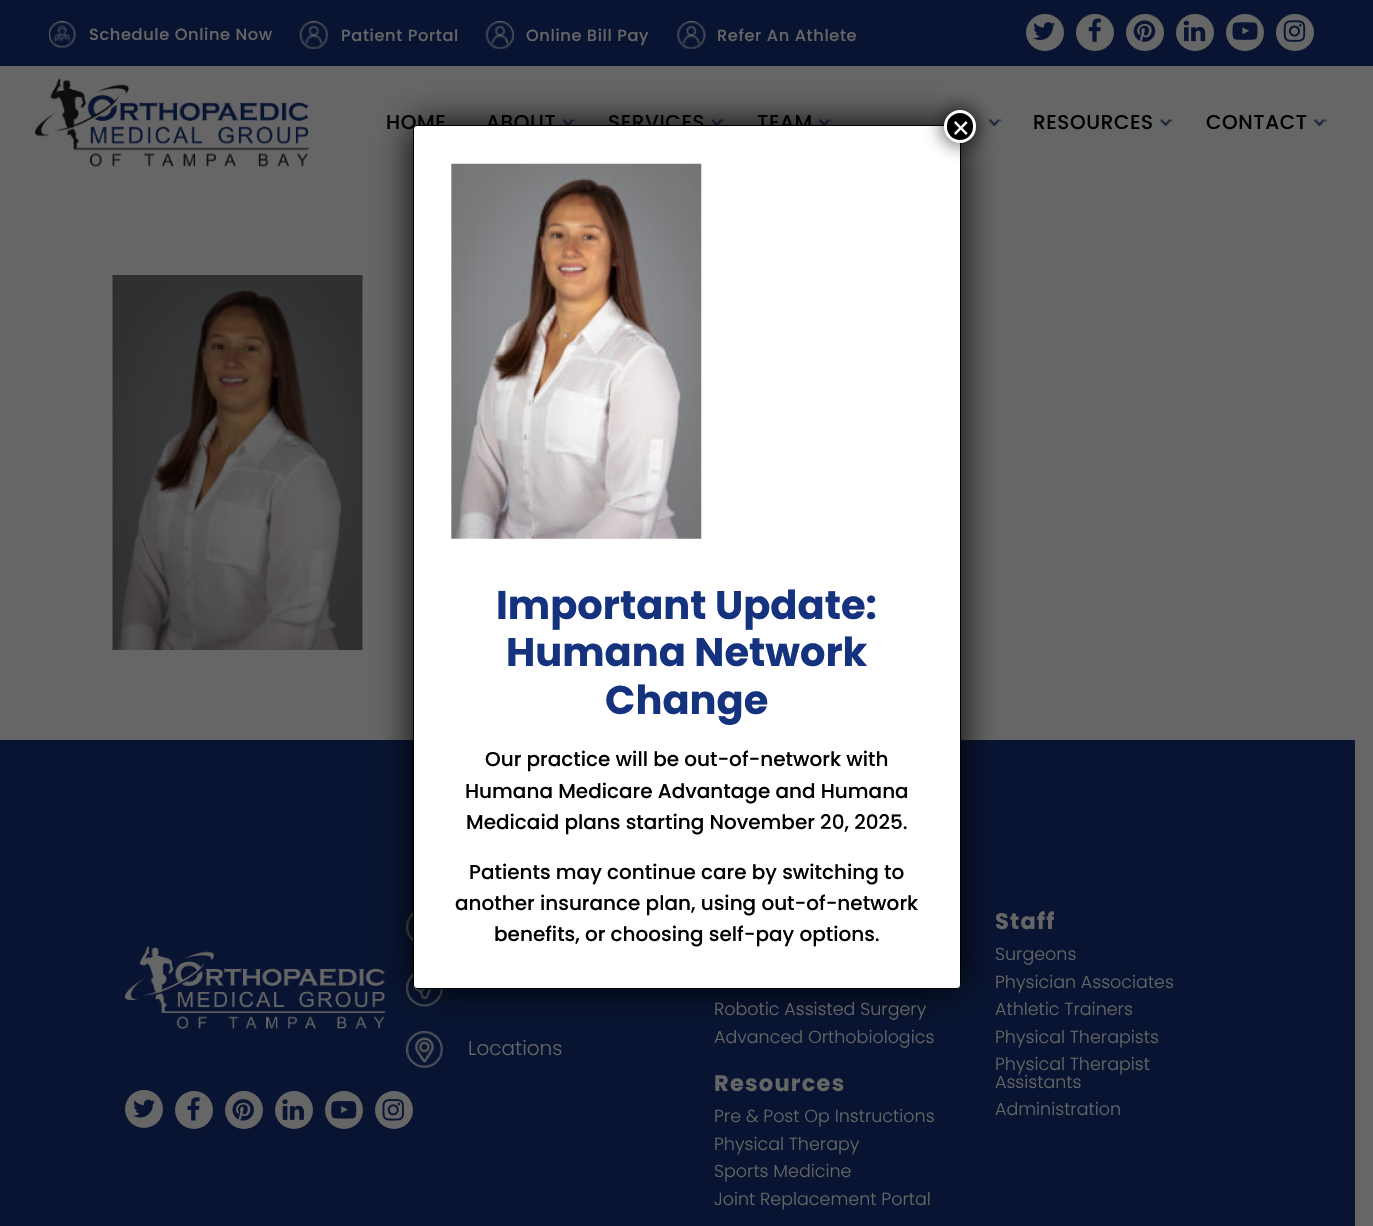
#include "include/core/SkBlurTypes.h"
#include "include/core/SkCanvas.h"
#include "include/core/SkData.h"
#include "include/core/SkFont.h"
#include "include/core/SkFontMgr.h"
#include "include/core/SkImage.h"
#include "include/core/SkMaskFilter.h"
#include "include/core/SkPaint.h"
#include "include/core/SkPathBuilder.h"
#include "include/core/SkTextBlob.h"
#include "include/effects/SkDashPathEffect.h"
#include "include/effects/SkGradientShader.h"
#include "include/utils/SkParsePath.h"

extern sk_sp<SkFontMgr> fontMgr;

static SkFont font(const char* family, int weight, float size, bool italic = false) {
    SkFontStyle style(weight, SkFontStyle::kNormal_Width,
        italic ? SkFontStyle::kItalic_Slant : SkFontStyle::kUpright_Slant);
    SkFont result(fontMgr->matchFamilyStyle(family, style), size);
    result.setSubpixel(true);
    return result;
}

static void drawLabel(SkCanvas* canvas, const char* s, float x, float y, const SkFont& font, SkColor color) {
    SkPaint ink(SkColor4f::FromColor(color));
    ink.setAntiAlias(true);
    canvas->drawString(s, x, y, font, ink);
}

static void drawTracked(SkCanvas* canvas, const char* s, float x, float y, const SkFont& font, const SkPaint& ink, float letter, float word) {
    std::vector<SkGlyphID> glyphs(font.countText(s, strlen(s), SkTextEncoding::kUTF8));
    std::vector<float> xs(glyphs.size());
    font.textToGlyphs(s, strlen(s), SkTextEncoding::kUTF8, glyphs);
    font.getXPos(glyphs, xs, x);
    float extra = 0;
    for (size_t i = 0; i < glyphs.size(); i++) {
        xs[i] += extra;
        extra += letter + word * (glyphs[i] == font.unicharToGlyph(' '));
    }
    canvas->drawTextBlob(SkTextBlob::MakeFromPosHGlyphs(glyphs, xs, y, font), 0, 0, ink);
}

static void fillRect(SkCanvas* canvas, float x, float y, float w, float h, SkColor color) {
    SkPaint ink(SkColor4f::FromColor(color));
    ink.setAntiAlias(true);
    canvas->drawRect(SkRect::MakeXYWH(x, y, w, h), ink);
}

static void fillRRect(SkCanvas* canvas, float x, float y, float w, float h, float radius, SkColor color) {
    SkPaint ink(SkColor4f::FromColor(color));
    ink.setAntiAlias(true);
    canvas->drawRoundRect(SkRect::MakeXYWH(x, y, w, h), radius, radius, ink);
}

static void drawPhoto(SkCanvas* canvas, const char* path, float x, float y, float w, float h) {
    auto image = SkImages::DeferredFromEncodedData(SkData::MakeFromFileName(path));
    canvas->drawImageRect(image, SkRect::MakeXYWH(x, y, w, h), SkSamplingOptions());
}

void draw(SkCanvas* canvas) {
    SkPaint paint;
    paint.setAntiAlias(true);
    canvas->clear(0xFF666666);
    fillRect(canvas, 0, 0, 1373, 65, 0xFF081432);
    fillRect(canvas, 0, 65, 1373, 1, 0xFF07122D);
    drawPhoto(canvas, "assets/img1.png", 49, 21, 27, 28);
    SkFont font1 = font("Poppins", 500, 16.25f);
    paint.setColor(0xFF666666);
    drawTracked(canvas, "Schedule Online Now", 89, 40, font1, paint, 0.6f, 0);
    drawPhoto(canvas, "assets/img2.png", 299, 21, 29, 28);
    drawTracked(canvas, "Patient Portal", 341, 41, font1, paint, 0.6f, 0);
    drawPhoto(canvas, "assets/img3.png", 485, 21, 29, 28);
    drawTracked(canvas, "Online Bill Pay", 526, 41, font1, paint, 0.6f, 0);
    drawPhoto(canvas, "assets/img4.png", 676, 21, 30, 28);
    drawTracked(canvas, "Refer An Athlete", 717, 41, font1, paint, 0.6f, 0);
    fillRRect(canvas, 1026, 14, 38, 37, 18.5f, 0xFF666666);
    drawPhoto(canvas, "assets/img5.png", 1033, 22, 22, 18);
    fillRRect(canvas, 1076, 14, 38, 37, 18.5f, 0xFF666666);
    drawPhoto(canvas, "assets/img6.png", 1088, 18, 13, 24);
    fillRRect(canvas, 1126, 14, 38, 37, 18.5f, 0xFF666666);
    drawPhoto(canvas, "assets/img7.png", 1133, 20, 23, 22);
    fillRRect(canvas, 1176, 14, 38, 37, 18.5f, 0xFF666666);
    drawPhoto(canvas, "assets/img8.png", 1183, 20, 23, 22);
    fillRRect(canvas, 1226, 14, 38, 37, 18.5f, 0xFF666666);
    drawPhoto(canvas, "assets/img9.png", 1232, 22, 26, 18);
    fillRRect(canvas, 1276, 14, 38, 37, 18.5f, 0xFF666666);
    drawPhoto(canvas, "assets/img10.png", 1283, 20, 23, 22);
    drawPhoto(canvas, "assets/img11.png", 35, 78, 274, 89);
    SkFont font2 = font("Poppins", 500, 20);
    paint.setColor(0xFF000000);
    drawTracked(canvas, "HOME", 386, 129, font2, paint, 0.6f, 0);
    drawTracked(canvas, "ABOUT", 486, 129, font2, paint, 0.6f, 0);
    drawPhoto(canvas, "assets/img12.png", 563, 119, 13, 6);
    drawTracked(canvas, "SERVICES", 608, 129, font2, paint, 0.6f, 0);
    drawPhoto(canvas, "assets/img13.png", 710, 119, 15, 6);
    drawTracked(canvas, "TEAM", 757, 129, font2, paint, 0.6f, 0);
    drawPhoto(canvas, "assets/img14.png", 818, 119, 14, 6);
    drawPhoto(canvas, "assets/img15.png", 988, 119, 14, 8);
    drawTracked(canvas, "RESOURCES", 1033, 129, font2, paint, 0.6f, 0);
    drawPhoto(canvas, "assets/img16.png", 1159, 119, 14, 8);
    drawTracked(canvas, "CONTACT", 1206, 129, font2, paint, 0.6f, 0);
    drawPhoto(canvas, "assets/img17.png", 1313, 119, 14, 8);
    drawPhoto(canvas, "assets/img19.png", 112, 275, 251, 375);
    fillRect(canvas, 0, 740, 1355, 486, 0xFF081432);
    drawPhoto(canvas, "assets/img20.png", 125, 946, 260, 83);
    drawPhoto(canvas, "assets/img27.png", 406, 912, 7, 30);
    drawPhoto(canvas, "assets/img28.png", 406, 973, 37, 34);
    drawPhoto(canvas, "assets/img29.png", 406, 1031, 37, 37);
    paint.setColor(0xFF020202);
    paint.setMaskFilter(SkMaskFilter::MakeBlur(kNormal_SkBlurStyle, 19));
    canvas->drawRoundRect(SkRect::MakeXYWH(413, 125, 548, 864), 4, 4, paint);
    paint.setMaskFilter(nullptr);
    paint.setColor(0xFFFFFFFF);
    canvas->drawRoundRect(SkRect::MakeXYWH(413.5f, 125.5f, 547, 863), 3.5f, 3.5f, paint);
    paint.setStroke(true);
    paint.setStrokeWidth(1);
    paint.setColor(0xFF000000);
    canvas->drawRoundRect(SkRect::MakeXYWH(413.5f, 125.5f, 547, 863), 3.5f, 3.5f, paint);
    paint.setStroke(false);
    paint.setColor(0xBF020202);
    paint.setMaskFilter(SkMaskFilter::MakeBlur(kNormal_SkBlurStyle, 9.5f));
    canvas->drawRoundRect(SkRect::MakeXYWH(943, 109, 35, 35), 17.5f, 17.5f, paint);
    paint.setMaskFilter(nullptr);
    paint.setColor(0xFF000000);
    canvas->drawRoundRect(SkRect::MakeXYWH(945.5f, 111.5f, 29, 30), 14.5f, 14.5f, paint);
    paint.setStroke(true);
    paint.setStrokeWidth(3);
    paint.setColor(0xFFFFFFFF);
    canvas->drawRoundRect(SkRect::MakeXYWH(945.5f, 111.5f, 29, 30), 14.5f, 14.5f, paint);
    SkFont font3 = font("Liberation Sans", 400, 30);
    drawLabel(canvas, "×", 952, 138, font3, 0xFFFFFFFF);
    drawPhoto(canvas, "assets/img18.png", 451, 163, 251, 376);
    SkFont font4 = font("Poppins", 700, 40);
    drawLabel(canvas, "Important Update:", 496, 619, font4, 0xFF14327E);
    drawLabel(canvas, "Humana Network", 506, 666, font4, 0xFF14327E);
    drawLabel(canvas, "Change", 605, 714, font4, 0xFF14327E);
    drawLabel(canvas, "Our practice will be out-of-network with", 485, 766, font2, 0xFF000000);
    drawLabel(canvas, "Humana Medicare Advantage and Humana", 465, 798, font2, 0xFF000000);
    drawLabel(canvas, "Medicaid plans starting November 20, 2025.", 466, 829, font2, 0xFF000000);
    drawLabel(canvas, "Patients may continue care by switching to", 469, 879, font2, 0xFF000000);
    drawLabel(canvas, "another insurance plan, using out-of-network", 455, 910, font2, 0xFF000000);
    drawLabel(canvas, "benefits, or choosing self-pay options.", 494, 941, font2, 0xFF000000);
    paint.setStroke(false);
    paint.setColor(0xFF666666);
    canvas->drawCircle(144, 1109, 19, paint);
    drawPhoto(canvas, "assets/img21.png", 133, 1099, 22, 19);
    canvas->drawCircle(194, 1110, 19, paint);
    drawPhoto(canvas, "assets/img22.png", 187, 1097, 13, 24);
    canvas->drawCircle(244, 1110, 19, paint);
    drawPhoto(canvas, "assets/img23.png", 232, 1099, 22, 22);
    canvas->drawCircle(294, 1110, 19, paint);
    drawPhoto(canvas, "assets/img24.png", 282, 1099, 22, 21);
    canvas->drawCircle(344, 1110, 19, paint);
    drawPhoto(canvas, "assets/img25.png", 331, 1101, 26, 18);
    canvas->drawCircle(394, 1110, 19, paint);
    drawPhoto(canvas, "assets/img26.png", 382, 1099, 22, 22);
    SkFont font5 = font("Poppins", 300, 20);
    drawLabel(canvas, "Locations", 468, 1055, font5, 0xFF666666);
    SkFont font6 = font("Poppins", 300, 17.5f);
    drawLabel(canvas, "Robotic Assisted Surgery", 714, 1015, font6, 0xFF666666);
    drawLabel(canvas, "Advanced Orthobiologics", 714, 1043, font6, 0xFF666666);
    SkFont font7 = font("Poppins", 700, 22.5f);
    drawTracked(canvas, "Resources", 714, 1091, font7, paint, 1.25f, 0);
    drawLabel(canvas, "Pre & Post Op Instructions", 714, 1122, font6, 0xFF666666);
    drawLabel(canvas, "Physical Therapy", 714, 1150, font6, 0xFF666666);
    drawLabel(canvas, "Sports Medicine", 714, 1177, font6, 0xFF666666);
    drawLabel(canvas, "Joint Replacement Portal", 714, 1205, font6, 0xFF666666);
    drawTracked(canvas, "Staff", 995, 929, font7, paint, 1.25f, 0);
    drawLabel(canvas, "Surgeons", 995, 960, font6, 0xFF666666);
    drawLabel(canvas, "Physician Associates", 995, 988, font6, 0xFF666666);
    drawLabel(canvas, "Athletic Trainers", 995, 1015, font6, 0xFF666666);
    drawLabel(canvas, "Physical Therapists", 995, 1043, font6, 0xFF666666);
    drawLabel(canvas, "Physical Therapist", 995, 1070, font6, 0xFF666666);
    drawLabel(canvas, "Assistants", 995, 1088, font6, 0xFF666666);
    drawLabel(canvas, "Administration", 995, 1115, font6, 0xFF666666);
}
